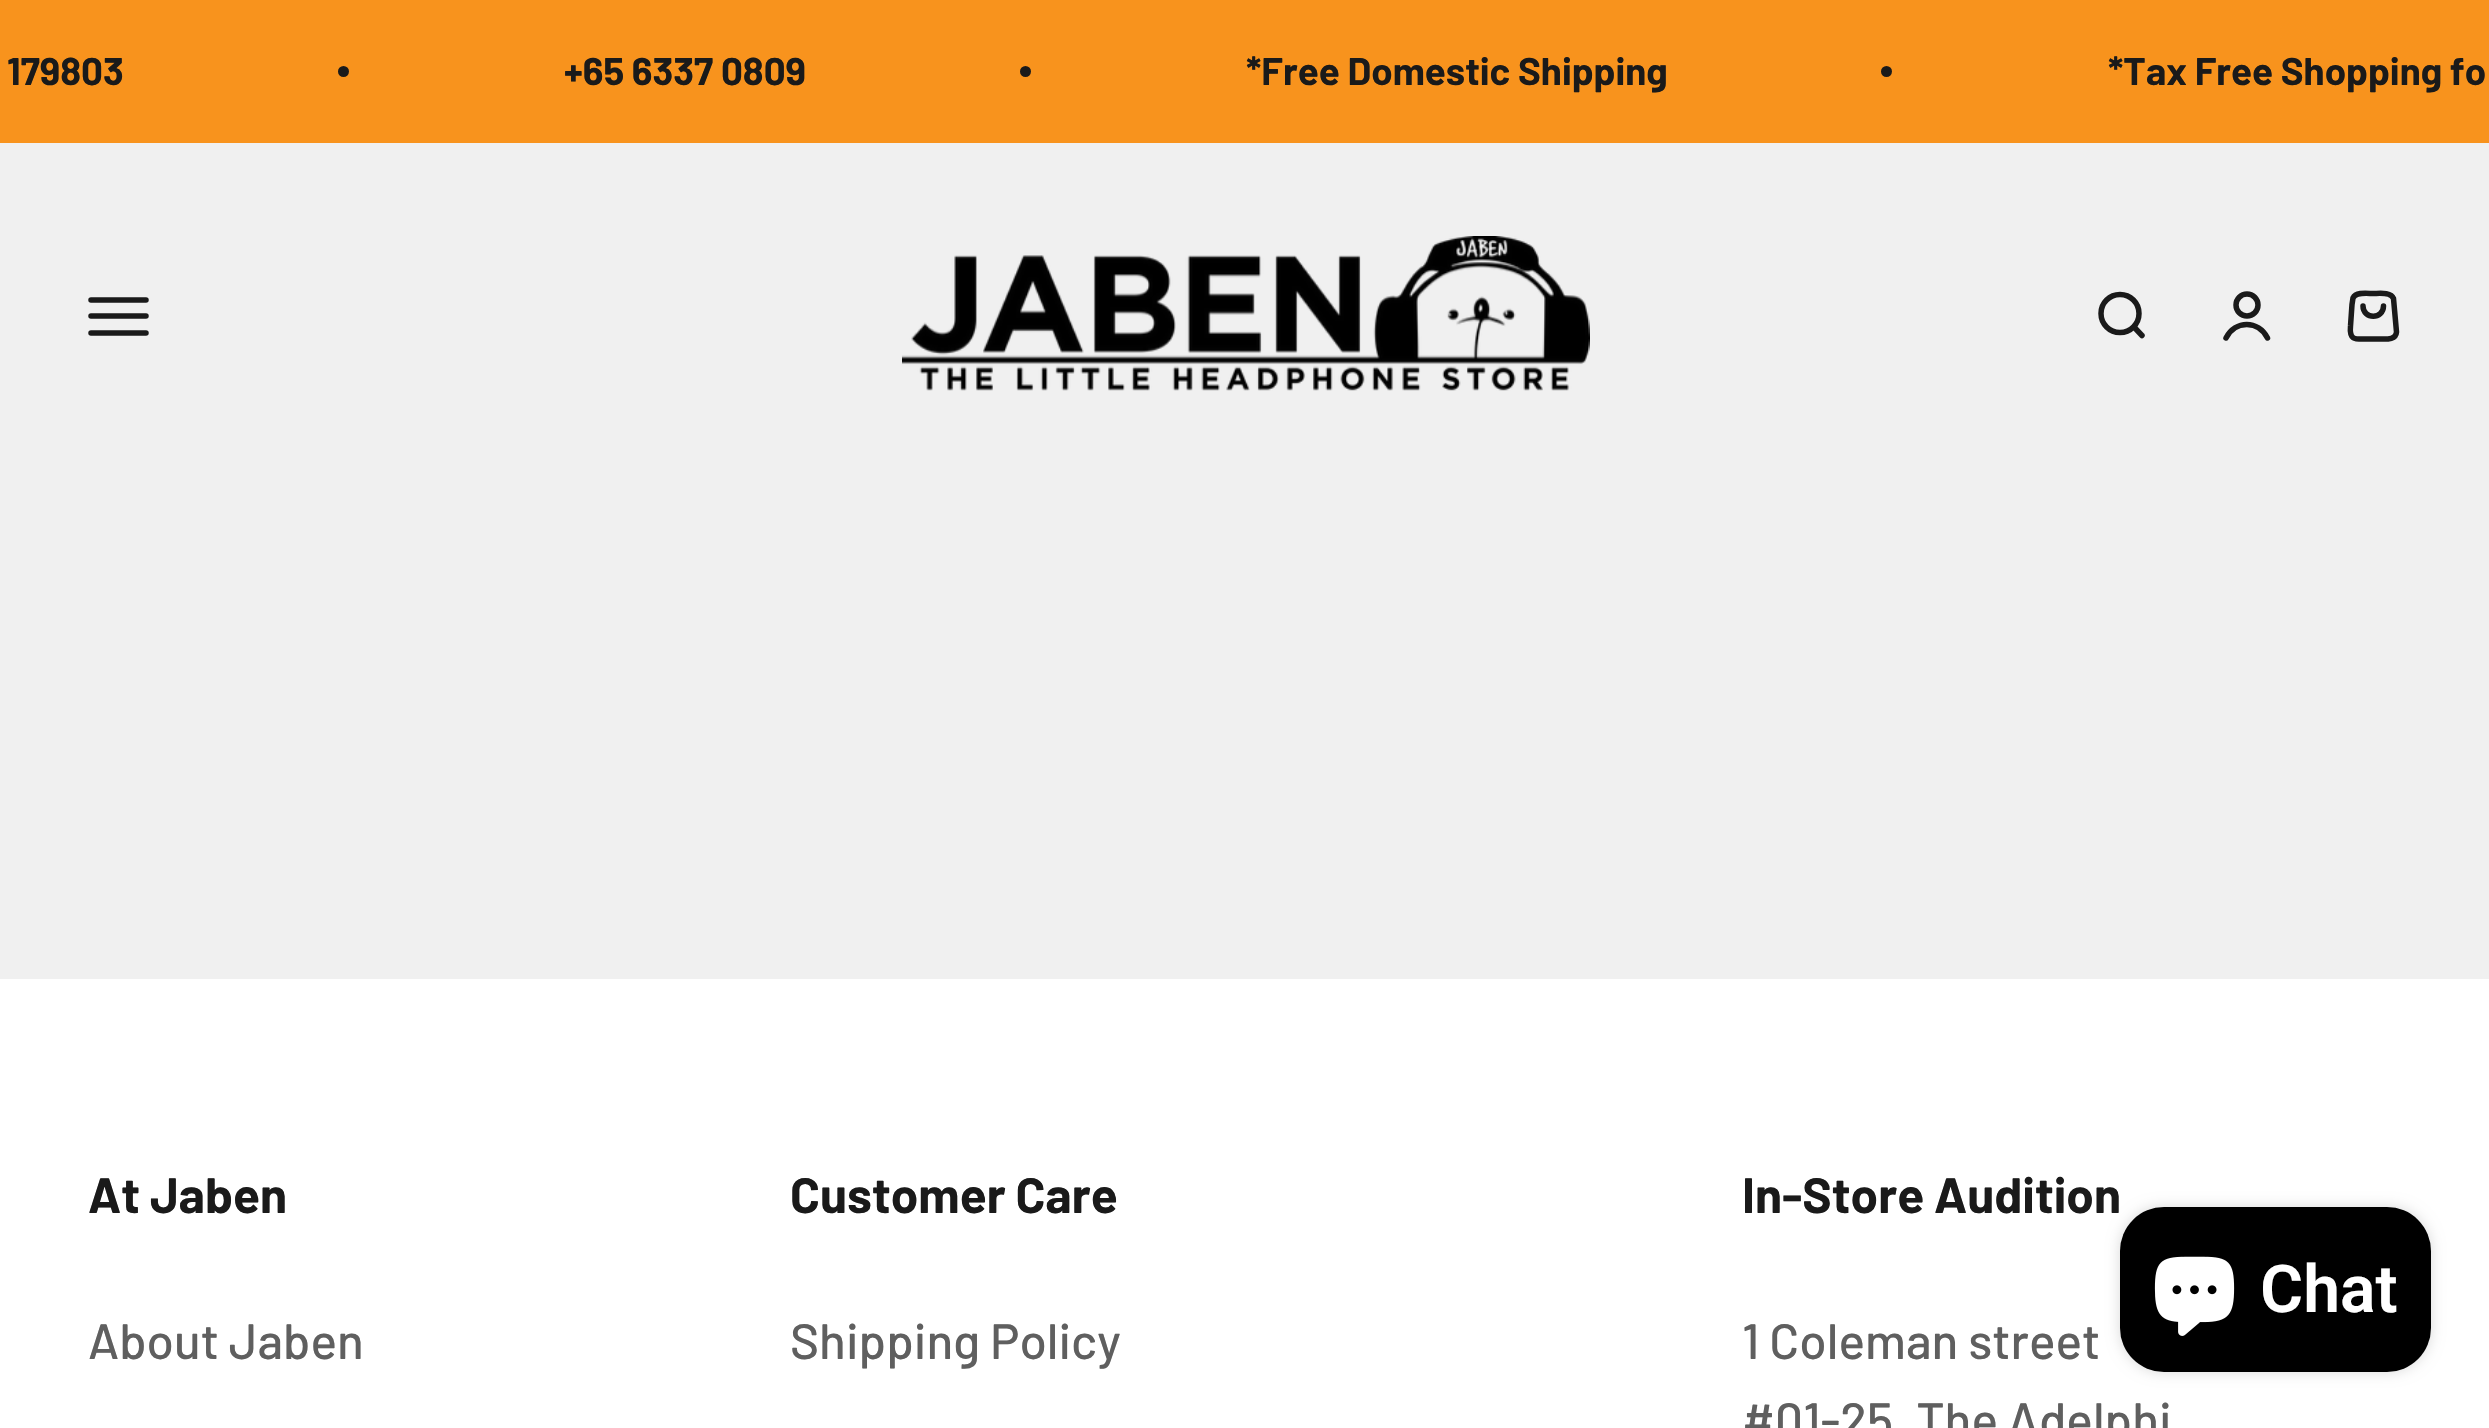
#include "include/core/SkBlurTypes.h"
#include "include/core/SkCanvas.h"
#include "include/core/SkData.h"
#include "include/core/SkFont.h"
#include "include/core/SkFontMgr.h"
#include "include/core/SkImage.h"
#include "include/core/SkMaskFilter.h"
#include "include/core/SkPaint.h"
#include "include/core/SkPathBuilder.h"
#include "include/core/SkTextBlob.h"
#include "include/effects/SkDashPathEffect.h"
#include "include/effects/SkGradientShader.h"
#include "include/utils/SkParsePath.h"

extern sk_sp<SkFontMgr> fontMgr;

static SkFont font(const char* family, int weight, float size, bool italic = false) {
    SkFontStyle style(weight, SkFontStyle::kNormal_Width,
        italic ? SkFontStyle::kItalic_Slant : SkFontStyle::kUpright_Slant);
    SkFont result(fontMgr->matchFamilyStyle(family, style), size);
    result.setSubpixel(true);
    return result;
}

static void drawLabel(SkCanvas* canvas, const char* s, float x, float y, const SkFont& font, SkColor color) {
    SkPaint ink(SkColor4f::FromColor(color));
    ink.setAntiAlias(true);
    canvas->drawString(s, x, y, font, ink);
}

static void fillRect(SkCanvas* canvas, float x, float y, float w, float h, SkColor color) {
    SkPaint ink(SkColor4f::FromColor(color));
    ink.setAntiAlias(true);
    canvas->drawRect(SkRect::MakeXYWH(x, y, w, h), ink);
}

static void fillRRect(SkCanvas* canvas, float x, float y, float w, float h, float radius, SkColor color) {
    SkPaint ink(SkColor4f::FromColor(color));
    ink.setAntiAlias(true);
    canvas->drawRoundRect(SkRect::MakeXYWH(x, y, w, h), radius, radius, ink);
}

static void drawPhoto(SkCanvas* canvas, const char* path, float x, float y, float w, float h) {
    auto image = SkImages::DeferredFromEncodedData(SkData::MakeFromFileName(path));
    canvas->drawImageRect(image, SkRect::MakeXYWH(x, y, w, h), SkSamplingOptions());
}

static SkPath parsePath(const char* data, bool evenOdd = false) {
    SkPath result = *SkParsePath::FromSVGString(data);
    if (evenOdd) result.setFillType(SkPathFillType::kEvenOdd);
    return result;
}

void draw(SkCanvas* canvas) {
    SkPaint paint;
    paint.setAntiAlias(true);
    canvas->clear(0xFFF0F0F0);
    fillRect(canvas, 0, 0, 2489, 143, 0xFFF8931D);
    SkFont font1 = font("Barlow", 700, 38.5f);
    drawLabel(canvas, "179803", 7, 85, font1, 0xFF1A1A1A);
    paint.setColor(0xFF1A1A1A);
    canvas->drawCircle(343.5f, 71.5f, 5.5f, paint);
    drawLabel(canvas, "+65 6337 0809", 564, 85, font1, 0xFF1A1A1A);
    canvas->drawCircle(1025.5f, 71.5f, 5.5f, paint);
    drawLabel(canvas, "*Free Domestic Shipping", 1246, 85, font1, 0xFF1A1A1A);
    canvas->drawCircle(1886.5f, 71.5f, 5.5f, paint);
    drawLabel(canvas, "*Tax Free Shopping fo", 2108, 85, font1, 0xFF1A1A1A);
    paint.setStroke(true);
    paint.setStrokeWidth(5.5f);
    paint.setStrokeCap(SkPaint::kRound_Cap);
    canvas->drawPath(parsePath("M91 300H146M91 316H146M91 333H146"), paint);
    drawPhoto(canvas, "assets/img1.png", 902, 236, 688, 155);
    paint.setStrokeCap(SkPaint::kButt_Cap);
    canvas->drawCircle(2120, 313.5f, 19, paint);
    paint.setStrokeCap(SkPaint::kRound_Cap);
    paint.setStrokeJoin(SkPaint::kRound_Join);
    canvas->drawPath(parsePath("M2134 327L2142 335.5"), paint);
    paint.setStrokeCap(SkPaint::kButt_Cap);
    paint.setStrokeJoin(SkPaint::kMiter_Join);
    canvas->drawCircle(2247, 305, 11, paint);
    paint.setStrokeCap(SkPaint::kRound_Cap);
    canvas->drawPath(parsePath("M2226 338C2235 320 2258.5 320 2267.5 338"), paint);
    paint.setStrokeJoin(SkPaint::kRound_Join);
    canvas->drawPath(parsePath("M2383.5 306C2383.5 319.5 2363 319.5 2363 306M2352 304.5L2350.5 326C2349 341.5 2356 339 2369.5 339H2380.5C2386 339 2396 340 2396.5 332L2393.5 298.5C2391 291.5 2378.5 293.5 2373 293.5C2368 293.5 2356 291.5 2353 298Z"), paint);
    fillRect(canvas, 0, 979, 2489, 449, 0xFFFFFFFF);
    SkFont font2 = font("Barlow", 700, 49.5f);
    drawLabel(canvas, "At Jaben", 88, 1213, font2, 0xFF1A1A1A);
    SkFont font3 = font("Barlow", 500, 49.5f);
    drawLabel(canvas, "About Jaben", 88, 1359, font3, 0xFF5F5F5F);
    drawLabel(canvas, "Customer Care", 790, 1213, font2, 0xFF1A1A1A);
    drawLabel(canvas, "Shipping Policy", 790, 1359, font3, 0xFF5F5F5F);
    drawLabel(canvas, "In-Store Audition", 1742, 1213, font2, 0xFF1A1A1A);
    drawLabel(canvas, "1 Coleman street", 1742, 1359, font3, 0xFF5F5F5F);
    drawLabel(canvas, "#01-25, The Adelphi", 1742, 1438, font3, 0xFF5F5F5F);
    paint.setStroke(false);
    paint.setColor(0x26000000);
    paint.setMaskFilter(SkMaskFilter::MakeBlur(kNormal_SkBlurStyle, 7));
    canvas->drawRoundRect(SkRect::MakeXYWH(2120, 1207, 311, 165), 44, 44, paint);
    paint.setMaskFilter(nullptr);
    fillRRect(canvas, 2120, 1207, 311, 165, 44, 0xFF000000);
    drawPhoto(canvas, "assets/img2.png", 2154, 1256, 81, 80);
    SkFont font4 = font("Roboto", 600, 66);
    drawLabel(canvas, "Chat", 2260, 1312, font4, 0xFFFFFFFF);
}
